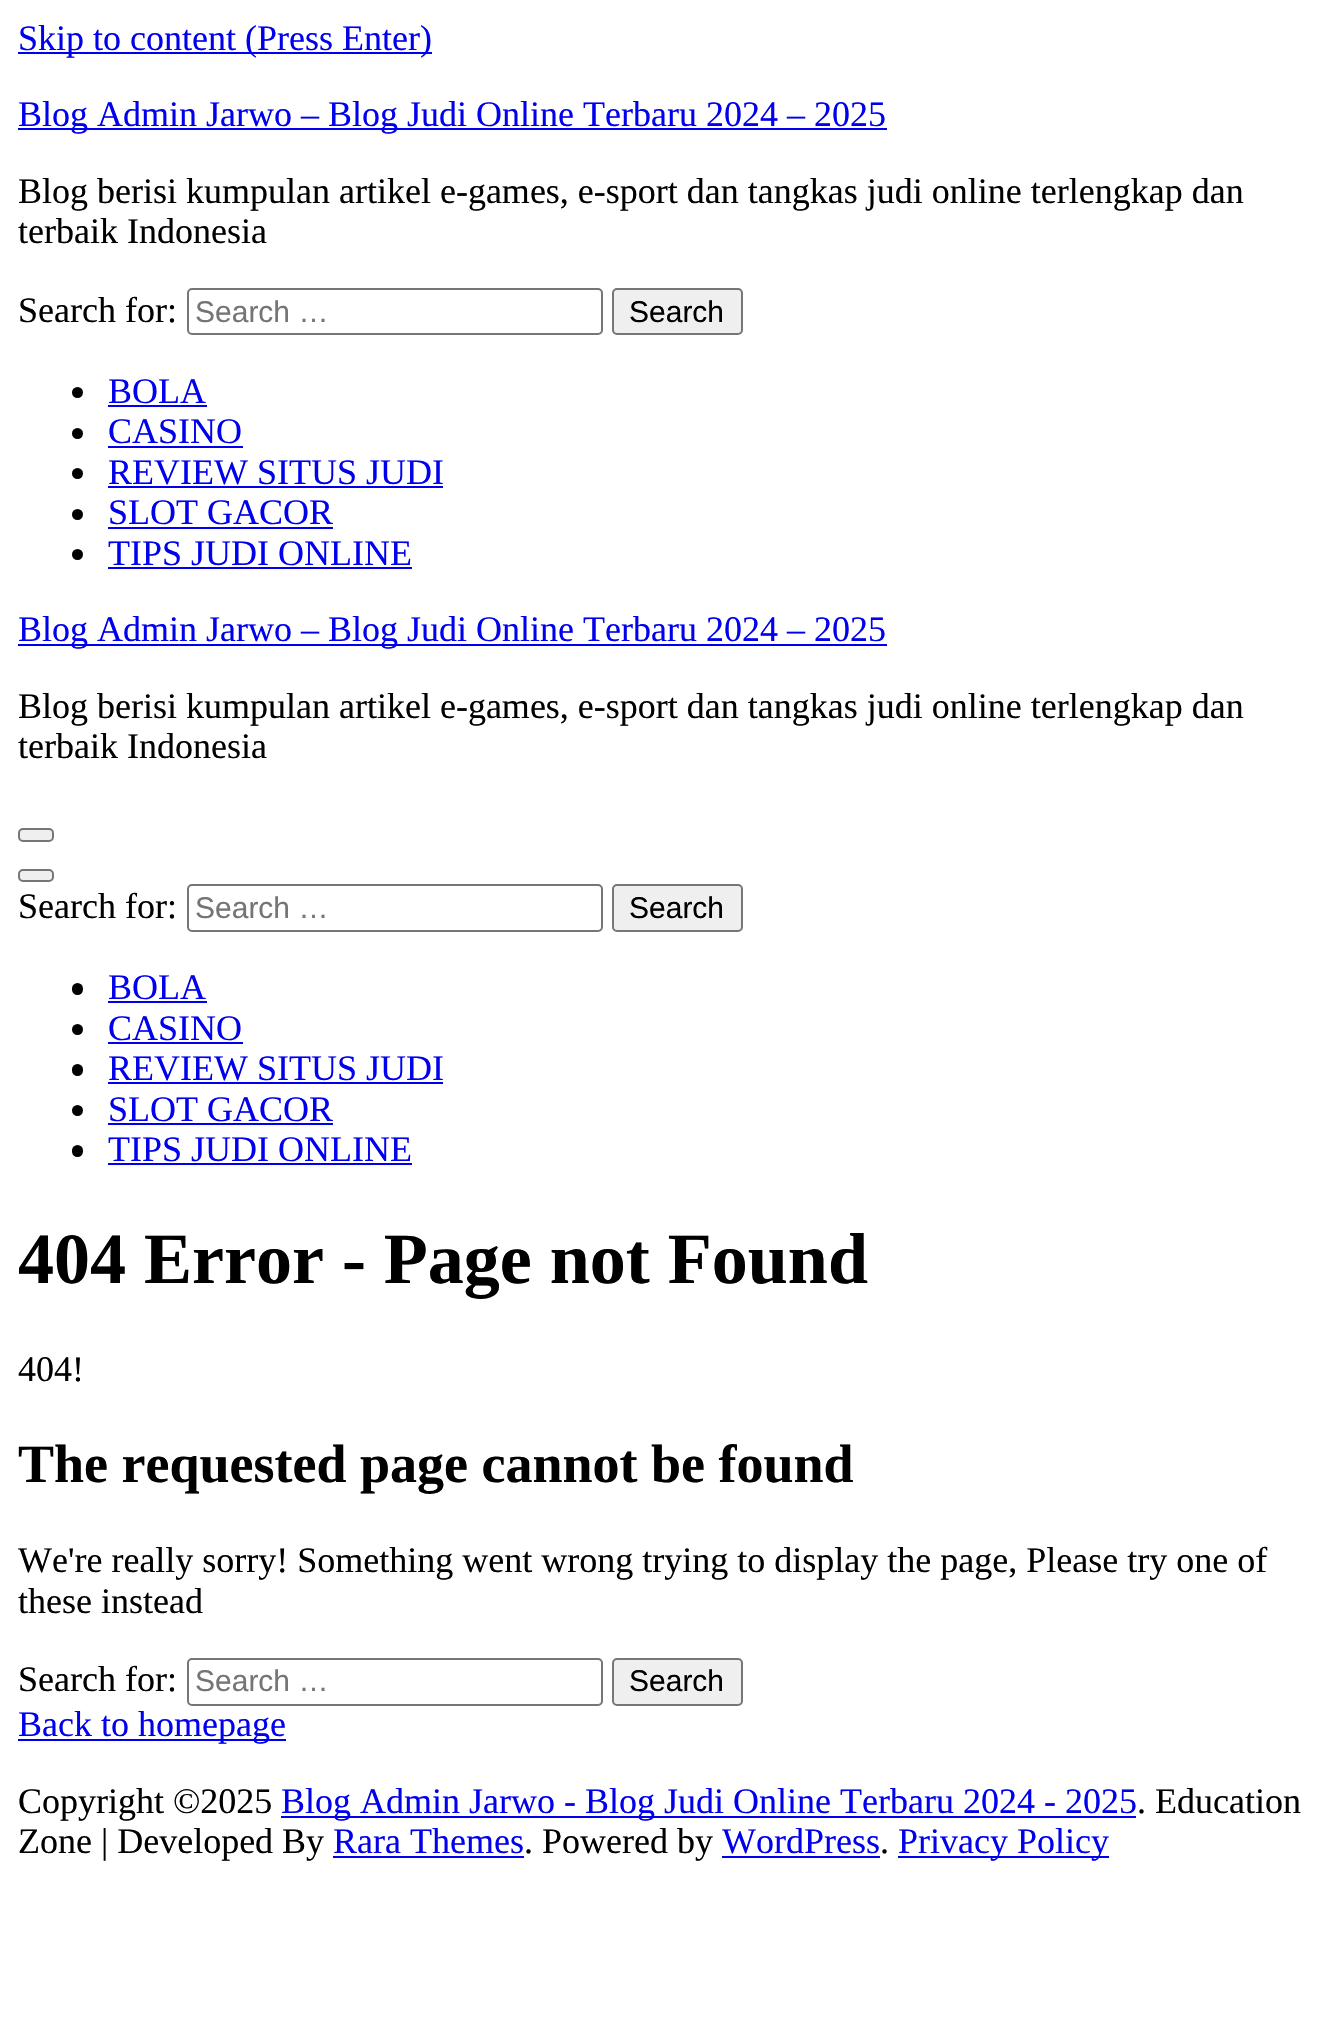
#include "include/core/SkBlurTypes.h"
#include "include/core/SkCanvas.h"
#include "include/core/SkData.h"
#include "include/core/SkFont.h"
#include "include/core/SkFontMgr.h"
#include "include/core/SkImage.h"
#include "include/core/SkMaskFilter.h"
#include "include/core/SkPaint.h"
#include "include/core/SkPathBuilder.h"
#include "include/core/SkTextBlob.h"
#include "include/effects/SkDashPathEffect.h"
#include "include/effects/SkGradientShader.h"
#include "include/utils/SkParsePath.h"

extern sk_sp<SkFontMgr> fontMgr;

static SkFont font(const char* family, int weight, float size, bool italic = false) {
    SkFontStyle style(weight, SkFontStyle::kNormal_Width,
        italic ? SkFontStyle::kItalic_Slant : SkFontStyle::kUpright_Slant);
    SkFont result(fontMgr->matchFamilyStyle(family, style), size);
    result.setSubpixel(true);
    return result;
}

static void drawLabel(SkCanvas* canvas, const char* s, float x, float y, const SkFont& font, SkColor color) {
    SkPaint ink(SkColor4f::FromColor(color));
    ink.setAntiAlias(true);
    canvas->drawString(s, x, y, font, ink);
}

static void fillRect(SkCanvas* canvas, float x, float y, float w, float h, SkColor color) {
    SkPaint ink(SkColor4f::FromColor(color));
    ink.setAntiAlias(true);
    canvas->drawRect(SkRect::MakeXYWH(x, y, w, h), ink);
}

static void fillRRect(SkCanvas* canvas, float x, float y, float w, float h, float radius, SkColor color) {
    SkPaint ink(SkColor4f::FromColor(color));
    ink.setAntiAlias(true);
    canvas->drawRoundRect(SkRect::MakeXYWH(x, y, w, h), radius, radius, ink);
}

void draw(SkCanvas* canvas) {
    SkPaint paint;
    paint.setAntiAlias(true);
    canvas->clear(0xFFFFFFFF);
    fillRect(canvas, 18, 52, 414, 2, 0xFF0000EE);
    SkFont font1 = font("Liberation Serif", 400, 36);
    drawLabel(canvas, "Skip to content (Press Enter)", 18, 50, font1, 0xFF0000EE);
    fillRect(canvas, 18, 128, 869, 2, 0xFF0000EE);
    drawLabel(canvas, "Blog Admin Jarwo – Blog Judi Online Terbaru 2024 – 2025", 18, 126, font1, 0xFF0000EE);
    drawLabel(canvas, "Blog berisi kumpulan artikel e-games, e-sport dan tangkas judi online terlengkap dan", 18, 203, font1, 0xFF000000);
    drawLabel(canvas, "terbaik Indonesia", 18, 243, font1, 0xFF000000);
    drawLabel(canvas, "Search for:", 18, 322, font1, 0xFF000000);
    paint.setStroke(true);
    paint.setStrokeWidth(2);
    paint.setColor(0xFF767676);
    canvas->drawRoundRect(SkRect::MakeXYWH(188, 289, 414, 45), 4, 4, paint);
    SkFont font2 = font("Liberation Sans", 400, 30);
    drawLabel(canvas, "Search …", 195, 322, font2, 0xFF757575);
    paint.setStroke(false);
    paint.setColor(0xFFEFEFEF);
    canvas->drawRoundRect(SkRect::MakeXYWH(613, 289, 129, 45), 4, 4, paint);
    paint.setStroke(true);
    paint.setColor(0xFF767676);
    canvas->drawRoundRect(SkRect::MakeXYWH(613, 289, 129, 45), 4, 4, paint);
    drawLabel(canvas, "Search", 629, 322, font2, 0xFF000000);
    paint.setStroke(false);
    paint.setColor(0xFF000000);
    canvas->drawCircle(77.5f, 392.5f, 5.5f, paint);
    drawLabel(canvas, "BOLA", 108, 403, font1, 0xFF0000EE);
    fillRect(canvas, 108, 405, 99, 2, 0xFF0000EE);
    canvas->drawCircle(77.5f, 433.5f, 5.5f, paint);
    drawLabel(canvas, "CASINO", 108, 443, font1, 0xFF0000EE);
    fillRect(canvas, 108, 446, 135, 2, 0xFF0000EE);
    canvas->drawCircle(77.5f, 473.5f, 5.5f, paint);
    drawLabel(canvas, "REVIEW SITUS JUDI", 108, 484, font1, 0xFF0000EE);
    fillRect(canvas, 108, 486, 335, 2, 0xFF0000EE);
    canvas->drawCircle(77.5f, 514.5f, 5.5f, paint);
    drawLabel(canvas, "SLOT GACOR", 108, 524, font1, 0xFF0000EE);
    fillRect(canvas, 108, 527, 225, 2, 0xFF0000EE);
    canvas->drawCircle(77.5f, 554.5f, 5.5f, paint);
    drawLabel(canvas, "TIPS JUDI ONLINE", 108, 565, font1, 0xFF0000EE);
    fillRect(canvas, 108, 567, 304, 2, 0xFF0000EE);
    fillRect(canvas, 18, 644, 869, 2, 0xFF0000EE);
    drawLabel(canvas, "Blog Admin Jarwo – Blog Judi Online Terbaru 2024 – 2025", 18, 641, font1, 0xFF0000EE);
    drawLabel(canvas, "Blog berisi kumpulan artikel e-games, e-sport dan tangkas judi online terlengkap dan", 18, 718, font1, 0xFF000000);
    drawLabel(canvas, "terbaik Indonesia", 18, 758, font1, 0xFF000000);
    paint.setColor(0xFFEFEFEF);
    canvas->drawRoundRect(SkRect::MakeXYWH(19, 829, 34, 12), 4, 4, paint);
    paint.setStroke(true);
    paint.setColor(0xFF767676);
    canvas->drawRoundRect(SkRect::MakeXYWH(19, 829, 34, 12), 4, 4, paint);
    paint.setStroke(false);
    paint.setColor(0xFFEFEFEF);
    canvas->drawRoundRect(SkRect::MakeXYWH(19, 870, 34, 11), 4, 4, paint);
    paint.setStroke(true);
    paint.setColor(0xFF767676);
    canvas->drawRoundRect(SkRect::MakeXYWH(19, 870, 34, 11), 4, 4, paint);
    drawLabel(canvas, "Search for:", 18, 918, font1, 0xFF000000);
    canvas->drawRoundRect(SkRect::MakeXYWH(188, 885, 414, 46), 4, 4, paint);
    drawLabel(canvas, "Search …", 195, 918, font2, 0xFF757575);
    paint.setStroke(false);
    paint.setColor(0xFFEFEFEF);
    canvas->drawRoundRect(SkRect::MakeXYWH(613, 885, 129, 46), 4, 4, paint);
    paint.setStroke(true);
    paint.setColor(0xFF767676);
    canvas->drawRoundRect(SkRect::MakeXYWH(613, 885, 129, 46), 4, 4, paint);
    drawLabel(canvas, "Search", 629, 918, font2, 0xFF000000);
    fillRRect(canvas, 72, 983, 11, 12, 5.5f, 0xFF000000);
    drawLabel(canvas, "BOLA", 108, 999, font1, 0xFF0000EE);
    fillRect(canvas, 108, 1001, 99, 2, 0xFF0000EE);
    paint.setStroke(false);
    paint.setColor(0xFF000000);
    canvas->drawCircle(77.5f, 1029.5f, 5.5f, paint);
    drawLabel(canvas, "CASINO", 108, 1040, font1, 0xFF0000EE);
    fillRect(canvas, 108, 1042, 135, 2, 0xFF0000EE);
    fillRRect(canvas, 72, 1064, 11, 12, 5.5f, 0xFF000000);
    drawLabel(canvas, "REVIEW SITUS JUDI", 108, 1080, font1, 0xFF0000EE);
    fillRect(canvas, 108, 1082, 335, 2, 0xFF0000EE);
    canvas->drawCircle(77.5f, 1110.5f, 5.5f, paint);
    drawLabel(canvas, "SLOT GACOR", 108, 1121, font1, 0xFF0000EE);
    fillRect(canvas, 108, 1123, 225, 2, 0xFF0000EE);
    fillRRect(canvas, 72, 1145, 11, 12, 5.5f, 0xFF000000);
    drawLabel(canvas, "TIPS JUDI ONLINE", 108, 1161, font1, 0xFF0000EE);
    fillRect(canvas, 108, 1163, 304, 2, 0xFF0000EE);
    SkFont font3 = font("Liberation Serif", 700, 72);
    drawLabel(canvas, "404 Error - Page not Found", 18, 1283, font3, 0xFF000000);
    drawLabel(canvas, "404!", 18, 1381, font1, 0xFF000000);
    SkFont font4 = font("Liberation Serif", 700, 54);
    drawLabel(canvas, "The requested page cannot be found", 18, 1482, font4, 0xFF000000);
    drawLabel(canvas, "We're really sorry! Something went wrong trying to display the page, Please try one of", 18, 1572, font1, 0xFF000000);
    drawLabel(canvas, "these instead", 18, 1613, font1, 0xFF000000);
    drawLabel(canvas, "Search for:", 18, 1691, font1, 0xFF000000);
    paint.setStroke(true);
    paint.setColor(0xFF767676);
    canvas->drawRoundRect(SkRect::MakeXYWH(188, 1659, 414, 46), 4, 4, paint);
    drawLabel(canvas, "Search …", 195, 1691, font2, 0xFF757575);
    paint.setStroke(false);
    paint.setColor(0xFFEFEFEF);
    canvas->drawRoundRect(SkRect::MakeXYWH(613, 1659, 129, 46), 4, 4, paint);
    paint.setStroke(true);
    paint.setColor(0xFF767676);
    canvas->drawRoundRect(SkRect::MakeXYWH(613, 1659, 129, 46), 4, 4, paint);
    drawLabel(canvas, "Search", 629, 1691, font2, 0xFF000000);
    fillRect(canvas, 18, 1739, 268, 2, 0xFF0000EE);
    drawLabel(canvas, "Back to homepage", 18, 1736, font1, 0xFF0000EE);
    drawLabel(canvas, "Copyright ©2025", 18, 1813, font1, 0xFF000000);
    fillRect(canvas, 281, 1816, 855, 2, 0xFF0000EE);
    drawLabel(canvas, "Blog Admin Jarwo - Blog Judi Online Terbaru 2024 - 2025", 281, 1813, font1, 0xFF0000EE);
    drawLabel(canvas, ". Education", 1137, 1813, font1, 0xFF000000);
    drawLabel(canvas, "Zone | Developed By", 18, 1853, font1, 0xFF000000);
    drawLabel(canvas, "Rara Themes", 333, 1853, font1, 0xFF0000EE);
    drawLabel(canvas, ". Powered by", 524, 1853, font1, 0xFF000000);
    fillRect(canvas, 333, 1856, 191, 2, 0xFF0000EE);
    drawLabel(canvas, "WordPress", 722, 1853, font1, 0xFF0000EE);
    drawLabel(canvas, ".", 880, 1853, font1, 0xFF000000);
    fillRect(canvas, 722, 1856, 158, 2, 0xFF0000EE);
    fillRect(canvas, 898, 1856, 211, 2, 0xFF0000EE);
    drawLabel(canvas, "Privacy Policy", 898, 1853, font1, 0xFF0000EE);
}
